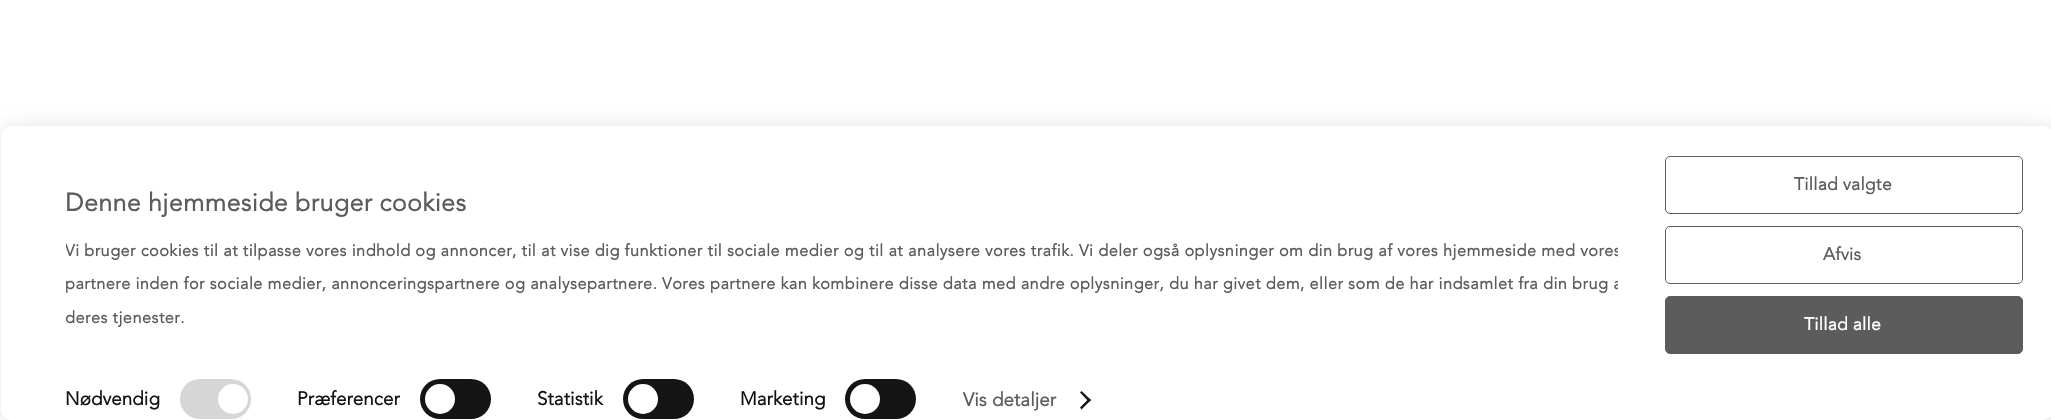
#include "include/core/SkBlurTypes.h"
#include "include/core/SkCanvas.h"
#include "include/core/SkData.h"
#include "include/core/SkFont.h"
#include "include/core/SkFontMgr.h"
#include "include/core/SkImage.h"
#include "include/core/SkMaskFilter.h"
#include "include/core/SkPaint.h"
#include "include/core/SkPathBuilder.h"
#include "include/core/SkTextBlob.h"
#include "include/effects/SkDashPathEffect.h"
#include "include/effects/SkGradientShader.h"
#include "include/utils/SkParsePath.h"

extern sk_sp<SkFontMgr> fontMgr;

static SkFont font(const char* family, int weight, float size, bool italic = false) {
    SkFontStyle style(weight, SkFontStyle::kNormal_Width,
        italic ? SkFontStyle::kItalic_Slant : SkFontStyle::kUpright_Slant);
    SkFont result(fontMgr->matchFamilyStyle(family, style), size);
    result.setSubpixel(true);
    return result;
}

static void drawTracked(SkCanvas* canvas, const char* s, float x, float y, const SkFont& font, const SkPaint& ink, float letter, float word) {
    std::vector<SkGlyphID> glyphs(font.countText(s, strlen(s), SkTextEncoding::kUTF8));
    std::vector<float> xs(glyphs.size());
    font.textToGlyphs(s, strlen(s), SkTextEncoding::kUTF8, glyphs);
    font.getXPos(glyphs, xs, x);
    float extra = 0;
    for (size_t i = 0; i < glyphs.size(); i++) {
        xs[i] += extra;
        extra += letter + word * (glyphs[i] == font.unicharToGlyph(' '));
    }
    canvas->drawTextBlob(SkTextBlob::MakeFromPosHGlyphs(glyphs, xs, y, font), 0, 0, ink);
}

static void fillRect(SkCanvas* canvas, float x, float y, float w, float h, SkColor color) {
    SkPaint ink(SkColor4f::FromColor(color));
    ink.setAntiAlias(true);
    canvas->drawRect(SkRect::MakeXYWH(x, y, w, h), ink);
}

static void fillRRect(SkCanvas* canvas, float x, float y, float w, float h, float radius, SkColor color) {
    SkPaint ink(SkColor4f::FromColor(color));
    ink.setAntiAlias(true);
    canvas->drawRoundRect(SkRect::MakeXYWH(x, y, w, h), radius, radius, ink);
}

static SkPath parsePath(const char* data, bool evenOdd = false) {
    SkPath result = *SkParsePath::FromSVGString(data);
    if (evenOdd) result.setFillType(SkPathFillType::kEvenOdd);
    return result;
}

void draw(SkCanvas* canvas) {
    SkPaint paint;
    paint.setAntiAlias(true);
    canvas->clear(0xFFFFFFFF);
    paint.setColor(0x1A000000);
    paint.setMaskFilter(SkMaskFilter::MakeBlur(kNormal_SkBlurStyle, 9));
    canvas->drawRoundRect(SkRect::MakeXYWH(1, 126, 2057, 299), 13, 13, paint);
    paint.setMaskFilter(nullptr);
    fillRRect(canvas, 1, 126, 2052, 294, 10, 0xFFFFFFFF);
    SkFont font1 = font("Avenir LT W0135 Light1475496", 700, 25);
    paint.setColor(0xFF5C5C5C);
    drawTracked(canvas, "Denne hjemmeside bruger cookies", 65, 211, font1, paint, 0.4f, 0);
    canvas->save();
    canvas->clipRect(SkRect::MakeXYWH(66, 164, 1563, 171));
    SkFont font2 = font("Avenir LT W0135 Light1475496", 700, 16.25f);
    drawTracked(canvas, "Vi bruger cookies til at tilpasse vores indhold og annoncer, til at vise dig funktioner til sociale medier og til at analysere vores trafik. Vi deler også oplysninger om din brug af vores hjemmeside med vores", 65, 256, font2, paint, 0.5f, 0);
    canvas->restore();
    drawTracked(canvas, "partnere inden for sociale medier, annonceringspartnere og analysepartnere. Vores partnere kan kombinere disse data med andre oplysninger, du har givet dem, eller som de har indsamlet fra din brug a", 65, 289, font2, paint, 0.5f, 0);
    drawTracked(canvas, "deres tjenester.", 65, 323, font2, paint, 0.5f, 0);
    fillRect(canvas, 1618, 248, 3, 41, 0xFFFFFFFF);
    SkFont font3 = font("Avenir LT W0135 Light1475496", 700, 18.75f);
    paint.setColor(0xFF141414);
    drawTracked(canvas, "Nødvendig", 65, 405, font3, paint, 0.1f, 0);
    fillRRect(canvas, 180, 379, 71, 40, 20, 0xFFD6D6D6);
    paint.setColor(0xFFFFFFFF);
    canvas->drawCircle(233, 399, 15, paint);
    paint.setColor(0xFF141414);
    drawTracked(canvas, "Præferencer", 297, 405, font3, paint, 0.1f, 0);
    fillRRect(canvas, 420, 379, 71, 40, 20, 0xFF141414);
    paint.setColor(0xFFFFFFFF);
    canvas->drawCircle(440, 399, 15, paint);
    paint.setColor(0xFF141414);
    drawTracked(canvas, "Statistik", 537, 405, font3, paint, 0.1f, 0);
    fillRRect(canvas, 623, 379, 71, 40, 20, 0xFF141414);
    paint.setColor(0xFFFFFFFF);
    canvas->drawCircle(643, 399, 15, paint);
    paint.setColor(0xFF141414);
    drawTracked(canvas, "Marketing", 740, 405, font3, paint, 0.1f, 0);
    fillRRect(canvas, 845, 379, 71, 40, 20, 0xFF141414);
    paint.setColor(0xFFFFFFFF);
    canvas->drawCircle(865, 399, 15, paint);
    paint.setColor(0xFF5C5C5C);
    drawTracked(canvas, "Vis detaljer", 963, 406, font3, paint, 0.1f, 0);
    paint.setColor(0xFF141414);
    canvas->drawPath(parsePath("M1081.5 391L1091 400L1089 402L1080 392.5Z"), paint);
    canvas->drawPath(parsePath("M1089 398.5L1091 400L1081.5 409.5L1080 407.5Z"), paint);
    paint.setStroke(true);
    paint.setStrokeWidth(1);
    paint.setColor(0xFF5C5C5C);
    canvas->drawRoundRect(SkRect::MakeXYWH(1665.5f, 156.5f, 357, 57), 4.5f, 4.5f, paint);
    SkFont font4 = font("Avenir LT W0135 Light1475496", 700, 17.5f);
    paint.setStroke(false);
    drawTracked(canvas, "Tillad valgte", 1794, 190, font4, paint, 0.25f, 0);
    paint.setStroke(true);
    canvas->drawRoundRect(SkRect::MakeXYWH(1665.5f, 226.5f, 357, 57), 4.5f, 4.5f, paint);
    paint.setStroke(false);
    drawTracked(canvas, "Afvis", 1823, 260, font4, paint, 0.25f, 0);
    canvas->drawRoundRect(SkRect::MakeXYWH(1665.5f, 296.5f, 357, 57), 4.5f, 4.5f, paint);
    paint.setStroke(true);
    canvas->drawRoundRect(SkRect::MakeXYWH(1665.5f, 296.5f, 357, 57), 4.5f, 4.5f, paint);
    paint.setStroke(false);
    paint.setColor(0xFFFFFFFF);
    drawTracked(canvas, "Tillad alle", 1804, 330, font4, paint, 0.25f, 0);
}
